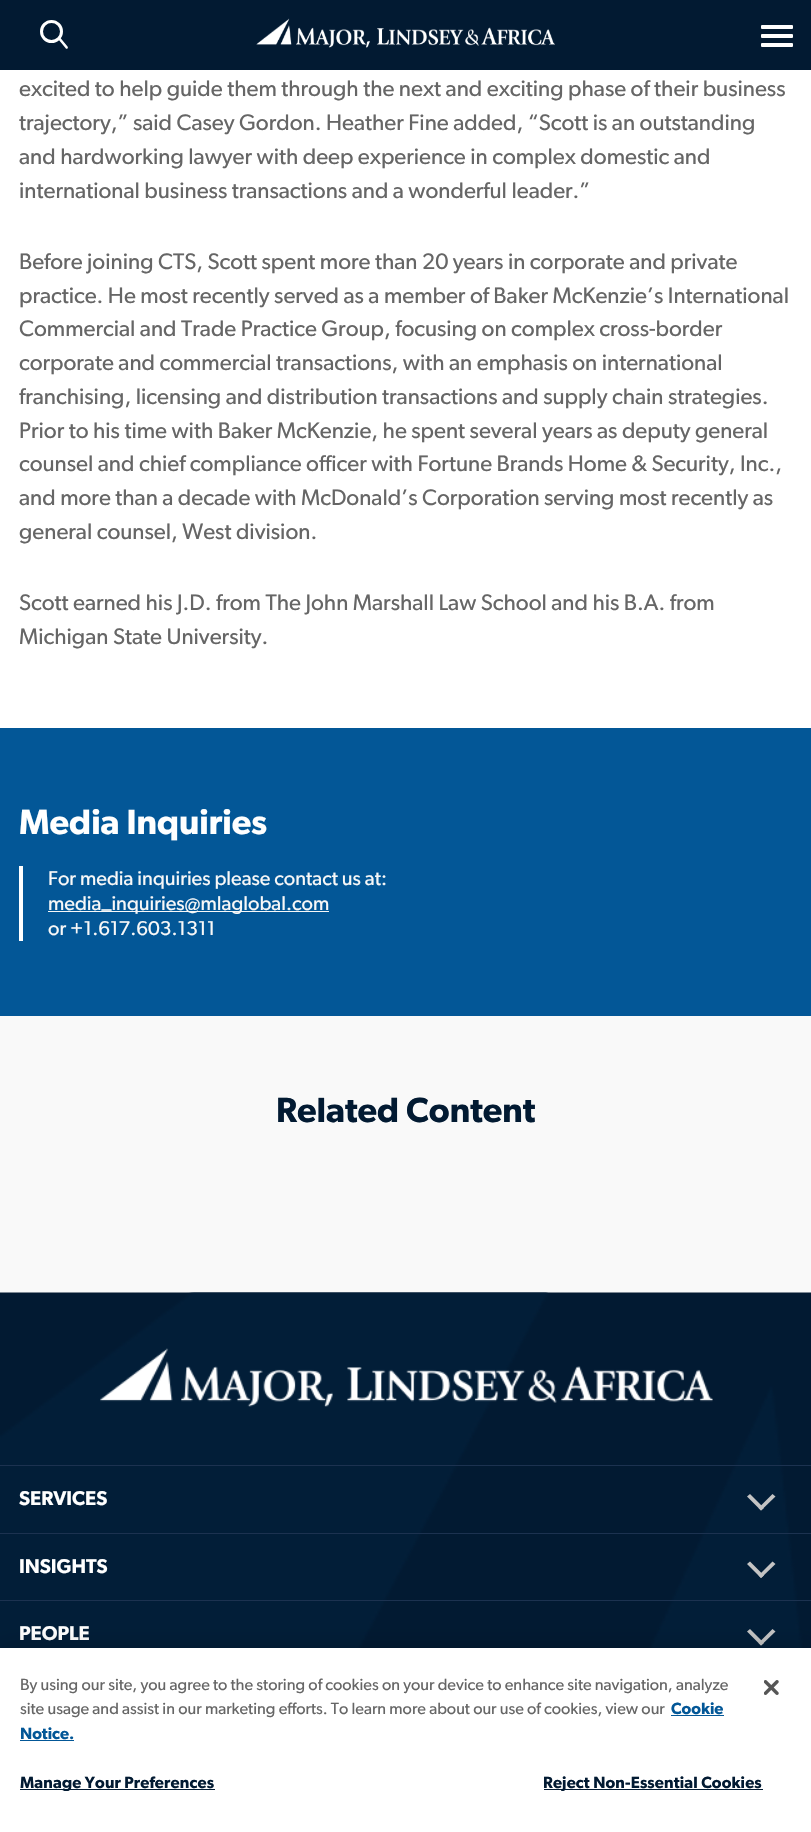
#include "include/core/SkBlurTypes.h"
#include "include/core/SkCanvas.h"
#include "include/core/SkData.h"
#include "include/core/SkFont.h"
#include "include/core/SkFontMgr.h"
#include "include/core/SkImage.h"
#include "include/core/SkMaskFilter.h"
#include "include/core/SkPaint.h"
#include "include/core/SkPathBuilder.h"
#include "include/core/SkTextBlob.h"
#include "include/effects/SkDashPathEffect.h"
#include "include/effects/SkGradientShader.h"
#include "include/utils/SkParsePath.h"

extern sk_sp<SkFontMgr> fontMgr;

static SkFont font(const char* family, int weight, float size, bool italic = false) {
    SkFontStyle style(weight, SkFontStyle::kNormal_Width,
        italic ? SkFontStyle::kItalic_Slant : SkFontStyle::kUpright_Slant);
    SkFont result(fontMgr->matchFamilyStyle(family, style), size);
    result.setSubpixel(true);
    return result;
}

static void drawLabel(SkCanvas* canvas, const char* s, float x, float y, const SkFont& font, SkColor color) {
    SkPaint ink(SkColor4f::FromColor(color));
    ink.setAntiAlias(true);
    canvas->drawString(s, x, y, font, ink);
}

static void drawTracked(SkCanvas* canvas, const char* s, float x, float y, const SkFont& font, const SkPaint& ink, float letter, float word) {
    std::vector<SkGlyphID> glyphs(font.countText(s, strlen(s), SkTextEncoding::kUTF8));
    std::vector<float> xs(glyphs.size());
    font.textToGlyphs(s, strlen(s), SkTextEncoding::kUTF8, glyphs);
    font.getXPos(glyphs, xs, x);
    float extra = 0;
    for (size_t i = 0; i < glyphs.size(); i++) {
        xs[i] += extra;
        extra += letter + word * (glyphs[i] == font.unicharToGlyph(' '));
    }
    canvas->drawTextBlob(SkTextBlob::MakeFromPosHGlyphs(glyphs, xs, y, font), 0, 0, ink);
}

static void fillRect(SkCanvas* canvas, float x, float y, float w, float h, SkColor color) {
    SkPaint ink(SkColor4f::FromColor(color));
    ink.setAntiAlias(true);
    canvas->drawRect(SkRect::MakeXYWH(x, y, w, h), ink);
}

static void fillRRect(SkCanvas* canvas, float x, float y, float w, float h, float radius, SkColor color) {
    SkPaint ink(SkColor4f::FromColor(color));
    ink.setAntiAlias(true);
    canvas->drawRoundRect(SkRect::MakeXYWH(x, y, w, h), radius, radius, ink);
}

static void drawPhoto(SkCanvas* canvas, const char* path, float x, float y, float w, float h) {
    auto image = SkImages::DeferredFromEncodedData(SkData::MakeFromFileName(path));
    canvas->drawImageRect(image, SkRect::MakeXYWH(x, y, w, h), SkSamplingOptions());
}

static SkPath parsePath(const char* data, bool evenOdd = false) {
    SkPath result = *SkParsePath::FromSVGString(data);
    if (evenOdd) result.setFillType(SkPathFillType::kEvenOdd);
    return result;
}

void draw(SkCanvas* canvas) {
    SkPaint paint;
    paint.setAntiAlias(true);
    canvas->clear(0xFFFFFFFF);
    fillRect(canvas, 0, 0, 811, 70, 0xFF021A32);
    paint.setStroke(true);
    paint.setStrokeWidth(3);
    paint.setColor(0xFFFFFFFF);
    canvas->drawCircle(51.5f, 31.5f, 10, paint);
    paint.setStroke(false);
    canvas->drawPath(parsePath("M67.5 48.5C67 49 66 49 65.5 48L58.5 39.5C58 39 58 38.5 58.5 38C59 37.5 60 37.5 60.5 38L67.5 46.5C68 47 68 48 67.5 48.5Z"), paint);
    drawPhoto(canvas, "assets/img1.png", 256, 18, 299, 30);
    fillRRect(canvas, 761, 25, 32, 4, 1, 0xFFFFFFFF);
    fillRRect(canvas, 761, 34, 32, 4, 1, 0xFFFFFFFF);
    fillRRect(canvas, 761, 43, 32, 4, 1, 0xFFFFFFFF);
    SkFont font1 = font("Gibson", 400, 22.5f);
    drawLabel(canvas, "excited to help guide them through the next and exciting phase of their business", 19, 96, font1, 0xFF666666);
    drawLabel(canvas, "trajectory,” said Casey Gordon. Heather Fine added, “Scott is an outstanding", 19, 130, font1, 0xFF666666);
    drawLabel(canvas, "and hardworking lawyer with deep experience in complex domestic and", 19, 164, font1, 0xFF666666);
    drawLabel(canvas, "international business transactions and a wonderful leader.”", 19, 198, font1, 0xFF666666);
    drawLabel(canvas, "Before joining CTS, Scott spent more than 20 years in corporate and private", 19, 269, font1, 0xFF666666);
    drawLabel(canvas, "practice. He most recently served as a member of Baker McKenzie’s International", 19, 303, font1, 0xFF666666);
    drawLabel(canvas, "Commercial and Trade Practice Group, focusing on complex cross-border", 19, 336, font1, 0xFF666666);
    drawLabel(canvas, "corporate and commercial transactions, with an emphasis on international", 19, 370, font1, 0xFF666666);
    drawLabel(canvas, "franchising, licensing and distribution transactions and supply chain strategies.", 19, 404, font1, 0xFF666666);
    drawLabel(canvas, "Prior to his time with Baker McKenzie, he spent several years as deputy general", 19, 438, font1, 0xFF666666);
    drawLabel(canvas, "counsel and chief compliance officer with Fortune Brands Home & Security, Inc.,", 19, 471, font1, 0xFF666666);
    drawLabel(canvas, "and more than a decade with McDonald’s Corporation serving most recently as", 19, 505, font1, 0xFF666666);
    drawLabel(canvas, "general counsel, West division.", 19, 539, font1, 0xFF666666);
    drawLabel(canvas, "Scott earned his J.D. from The John Marshall Law School and his B.A. from", 19, 610, font1, 0xFF666666);
    drawLabel(canvas, "Michigan State University.", 19, 644, font1, 0xFF666666);
    fillRect(canvas, 0, 728, 811, 288, 0xFF035797);
    SkFont font2 = font("Gibson", 600, 35);
    drawLabel(canvas, "Media Inquiries", 19, 834, font2, 0xFFFFFFFF);
    fillRect(canvas, 19, 866, 4, 75, 0xFFFFFFFF);
    SkFont font3 = font("Gibson", 400, 20);
    drawLabel(canvas, "For media inquiries please contact us at:", 48, 885, font3, 0xFFF8F8F8);
    fillRect(canvas, 48, 911, 281, 1, 0xFFF8F8F8);
    drawLabel(canvas, "media_inquiries@mlaglobal.com", 48, 910, font3, 0xFFF8F8F8);
    drawLabel(canvas, "or +1.617.603.1311", 48, 935, font3, 0xFFF8F8F8);
    fillRect(canvas, 0, 1016, 811, 277, 0xFFF9F9F9);
    drawLabel(canvas, "Related Content", 276, 1122, font2, 0xFF021A32);
    fillRect(canvas, 0, 1293, 811, 355, 0xFF021A32);
    drawPhoto(canvas, "assets/img2.png", 0, 1292, 811, 1);
    drawPhoto(canvas, "assets/img3.png", 0, 1292, 803, 356);
    drawPhoto(canvas, "assets/img4.png", 100, 1348, 613, 59);
    fillRect(canvas, 0, 1465, 811, 1, 0xFF1C3250);
    SkFont font4 = font("Gibson", 600, 20);
    drawLabel(canvas, "SERVICES", 19, 1505, font4, 0xFFFFFFFF);
    paint.setColor(0xFFC4C4C4);
    canvas->drawPath(parsePath("M772.5 1494L775.5 1496.5L761 1510.5L758.5 1508Z"), paint);
    canvas->drawPath(parsePath("M750 1494L764 1508L761 1510.5L747 1496.5Z"), paint);
    fillRect(canvas, 0, 1533, 811, 1, 0xFF1C3250);
    drawLabel(canvas, "INSIGHTS", 19, 1573, font4, 0xFFFFFFFF);
    canvas->drawPath(parsePath("M772.5 1561.5L775.5 1564L761 1578L758.5 1575.5Z"), paint);
    canvas->drawPath(parsePath("M750 1561.5L764 1575.5L761 1578L747 1564Z"), paint);
    fillRect(canvas, 0, 1600, 811, 1, 0xFF1C3250);
    drawLabel(canvas, "PEOPLE", 19, 1640, font4, 0xFFFFFFFF);
    canvas->drawPath(parsePath("M772.5 1629L775.5 1631.5L761 1645.5L758.5 1643Z"), paint);
    canvas->drawPath(parsePath("M750 1629L764 1643L761 1645.5L747 1631.5Z"), paint);
    paint.setColor(0x33000000);
    paint.setMaskFilter(SkMaskFilter::MakeBlur(kNormal_SkBlurStyle, 11));
    canvas->drawRect(SkRect::MakeXYWH(0, 1648, 811, 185), paint);
    paint.setMaskFilter(nullptr);
    fillRect(canvas, 0, 1648, 811, 184, 0xFFFFFFFF);
    SkFont font5 = font("Gibson", 400, 16.25f);
    drawLabel(canvas, "By using our site, you agree to the storing of cookies on your device to enhance site navigation, analyze", 20, 1690, font5, 0xFF666666);
    drawLabel(canvas, "site usage and assist in our marketing efforts. To learn more about our use of cookies, view our", 20, 1714, font5, 0xFF666666);
    SkFont font6 = font("Gibson", 600, 16.25f);
    drawLabel(canvas, "Cookie", 671, 1714, font6, 0xFF035797);
    fillRect(canvas, 671, 1715, 53, 1, 0xFF035797);
    drawLabel(canvas, "Notice.", 20, 1739, font6, 0xFF035797);
    fillRect(canvas, 20, 1740, 54, 1, 0xFF035797);
    fillRect(canvas, 20, 1789, 195, 1, 0xFF021A32);
    paint.setColor(0xFF021A32);
    drawTracked(canvas, "Manage Your Preferences", 20, 1788, font6, paint, 0.15f, 0);
    fillRect(canvas, 544, 1789, 219, 1, 0xFF021A32);
    drawTracked(canvas, "Reject Non-Essential Cookies", 543, 1788, font6, paint, 0.15f, 0);
    drawPhoto(canvas, "assets/img5.png", 764, 1680, 15, 15);
}
